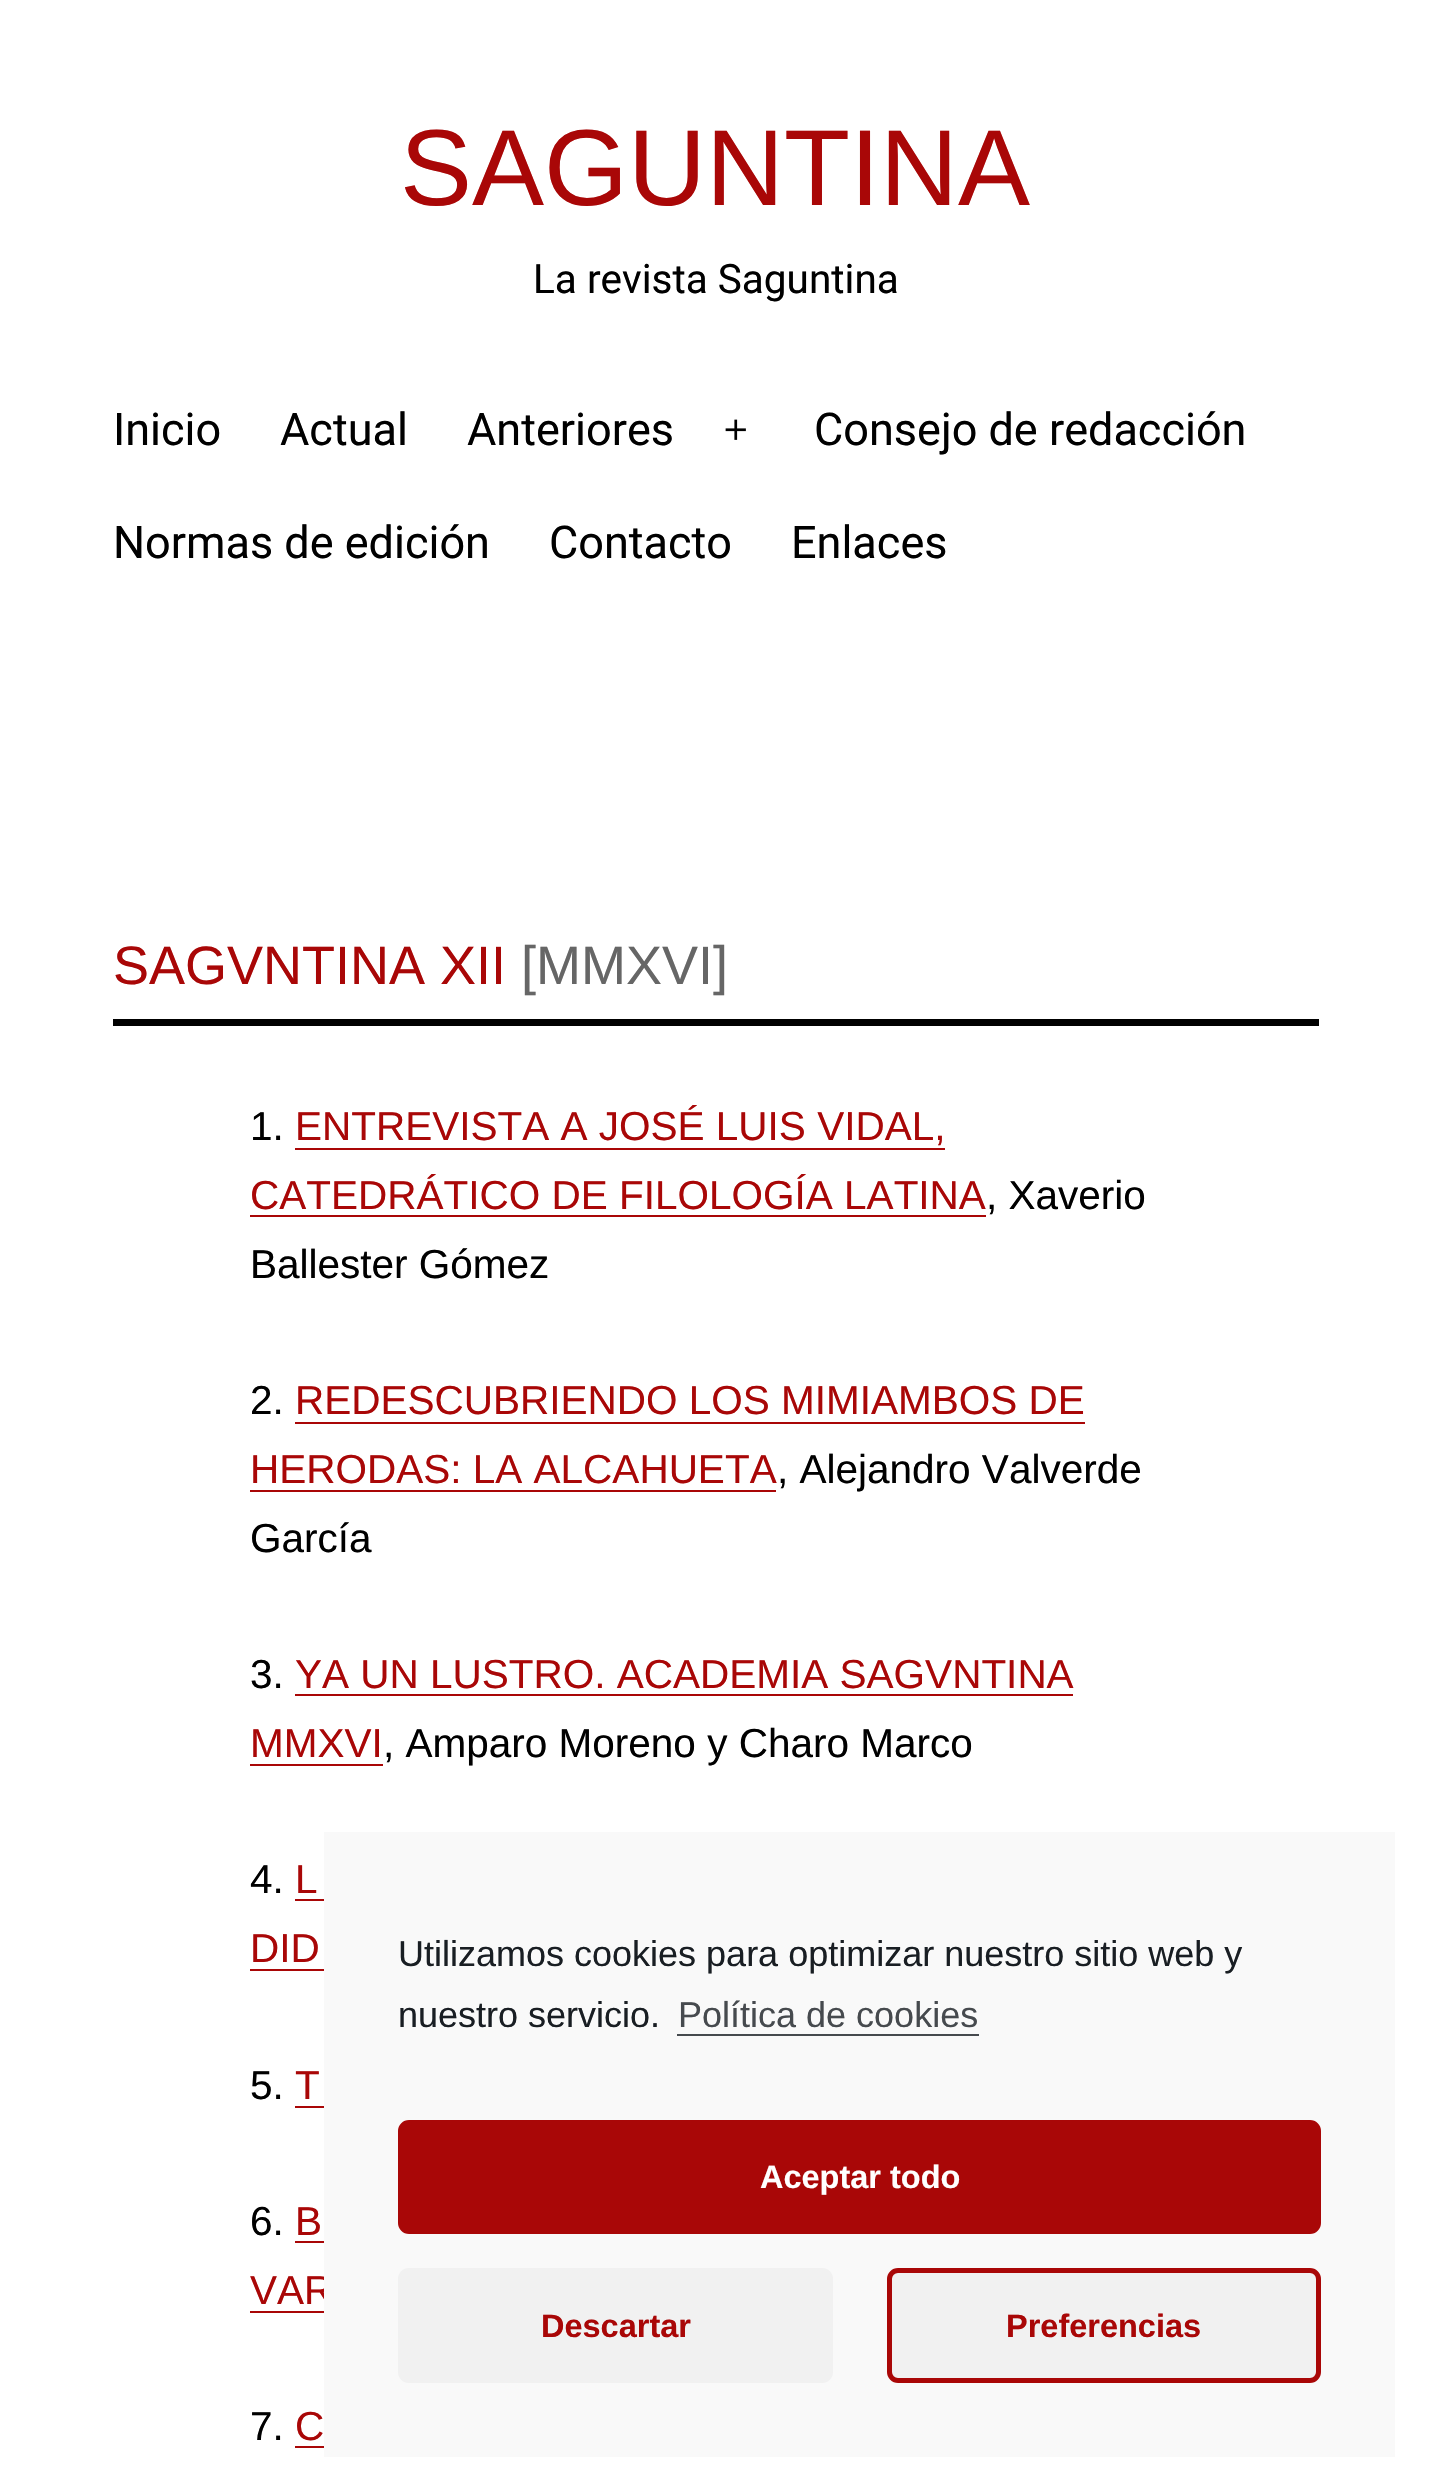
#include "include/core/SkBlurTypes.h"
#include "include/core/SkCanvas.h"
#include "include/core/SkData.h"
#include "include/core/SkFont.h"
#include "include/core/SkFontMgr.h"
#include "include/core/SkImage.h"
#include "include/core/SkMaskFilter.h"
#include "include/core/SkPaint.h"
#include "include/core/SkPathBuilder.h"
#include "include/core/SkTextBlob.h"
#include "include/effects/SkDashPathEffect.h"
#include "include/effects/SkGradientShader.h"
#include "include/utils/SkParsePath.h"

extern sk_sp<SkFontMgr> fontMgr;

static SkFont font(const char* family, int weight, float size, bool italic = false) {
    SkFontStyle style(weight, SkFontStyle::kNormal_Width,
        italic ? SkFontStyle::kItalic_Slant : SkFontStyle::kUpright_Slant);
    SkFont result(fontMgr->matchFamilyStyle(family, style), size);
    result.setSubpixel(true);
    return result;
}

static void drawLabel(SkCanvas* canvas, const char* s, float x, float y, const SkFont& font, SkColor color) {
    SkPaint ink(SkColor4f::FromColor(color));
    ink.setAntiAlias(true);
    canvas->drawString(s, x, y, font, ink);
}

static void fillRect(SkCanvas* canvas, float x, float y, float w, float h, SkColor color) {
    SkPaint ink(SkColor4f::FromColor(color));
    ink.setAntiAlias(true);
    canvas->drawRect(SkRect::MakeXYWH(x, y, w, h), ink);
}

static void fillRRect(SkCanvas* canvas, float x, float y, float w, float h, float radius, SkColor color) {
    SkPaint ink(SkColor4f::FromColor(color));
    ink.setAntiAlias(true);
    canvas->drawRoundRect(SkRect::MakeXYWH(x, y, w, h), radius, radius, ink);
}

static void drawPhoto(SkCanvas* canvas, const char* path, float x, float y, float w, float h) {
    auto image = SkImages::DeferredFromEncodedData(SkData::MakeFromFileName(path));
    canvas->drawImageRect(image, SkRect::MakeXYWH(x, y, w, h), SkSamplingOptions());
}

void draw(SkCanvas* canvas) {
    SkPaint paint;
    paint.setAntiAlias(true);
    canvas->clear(0xFFFFFFFF);
    SkFont font1 = font("Liberation Sans", 400, 108);
    drawLabel(canvas, "SAGUNTINA", 400, 205, font1, 0xFFA90707);
    SkFont font2 = font("Roboto", 400, 40.5f);
    drawLabel(canvas, "La revista Saguntina", 533, 293, font2, 0xFF000000);
    SkFont font3 = font("Roboto", 400, 45);
    drawLabel(canvas, "Inicio", 113, 445, font3, 0xFF000000);
    drawLabel(canvas, "Actual", 280, 445, font3, 0xFF000000);
    drawLabel(canvas, "Anteriores", 467, 445, font3, 0xFF000000);
    drawPhoto(canvas, "assets/img1.png", 725, 419, 21, 21);
    drawLabel(canvas, "Consejo de redacción", 814, 445, font3, 0xFF000000);
    drawLabel(canvas, "Normas de edición", 113, 558, font3, 0xFF000000);
    drawLabel(canvas, "Contacto", 549, 558, font3, 0xFF000000);
    drawLabel(canvas, "Enlaces", 791, 558, font3, 0xFF000000);
    fillRect(canvas, 113, 1019, 1206, 7, 0xFF000000);
    SkFont font4 = font("Liberation Sans", 400, 54);
    drawLabel(canvas, "SAGVNTINA XII", 113, 984, font4, 0xFFA90707);
    drawLabel(canvas, "[MMXVI]", 521, 984, font4, 0xFF666666);
    SkFont font5 = font("Liberation Sans", 400, 40.5f);
    drawLabel(canvas, "1.", 250, 1140, font5, 0xFF000000);
    drawLabel(canvas, "ENTREVISTA A JOSÉ LUIS VIDAL,", 295, 1140, font5, 0xFFA90707);
    fillRect(canvas, 295, 1148, 650, 2, 0xFFA90707);
    drawLabel(canvas, "CATEDRÁTICO DE FILOLOGÍA LATINA", 250, 1209, font5, 0xFFA90707);
    fillRect(canvas, 250, 1215, 736, 2, 0xFFA90707);
    drawLabel(canvas, ", Xaverio", 986, 1209, font5, 0xFF000000);
    drawLabel(canvas, "Ballester Gómez", 250, 1278, font5, 0xFF000000);
    drawLabel(canvas, "2.", 250, 1414, font5, 0xFF000000);
    drawLabel(canvas, "REDESCUBRIENDO LOS MIMIAMBOS DE", 295, 1414, font5, 0xFFA90707);
    fillRect(canvas, 295, 1422, 790, 2, 0xFFA90707);
    drawLabel(canvas, "HERODAS: LA ALCAHUETA", 250, 1483, font5, 0xFFA90707);
    fillRect(canvas, 250, 1490, 526, 2, 0xFFA90707);
    drawLabel(canvas, ", Alejandro Valverde", 777, 1483, font5, 0xFF000000);
    drawLabel(canvas, "García", 250, 1552, font5, 0xFF000000);
    drawLabel(canvas, "3.", 250, 1688, font5, 0xFF000000);
    drawLabel(canvas, "YA UN LUSTRO. ACADEMIA SAGVNTINA", 295, 1688, font5, 0xFFA90707);
    fillRect(canvas, 295, 1694, 778, 2, 0xFFA90707);
    drawLabel(canvas, "MMXVI", 250, 1757, font5, 0xFFA90707);
    fillRect(canvas, 250, 1764, 133, 2, 0xFFA90707);
    drawLabel(canvas, ", Amparo Moreno y Charo Marco", 383, 1757, font5, 0xFF000000);
    drawLabel(canvas, "4.", 250, 1893, font5, 0xFF000000);
    drawLabel(canvas, "L", 295, 1893, font5, 0xFFA90707);
    fillRect(canvas, 295, 1899, 29, 2, 0xFFA90707);
    drawLabel(canvas, "DID", 250, 1962, font5, 0xFFA90707);
    fillRect(canvas, 250, 1969, 74, 2, 0xFFA90707);
    drawLabel(canvas, "5.", 250, 2099, font5, 0xFF000000);
    drawLabel(canvas, "T", 295, 2099, font5, 0xFFA90707);
    fillRect(canvas, 295, 2106, 29, 2, 0xFFA90707);
    drawLabel(canvas, "6.", 250, 2235, font5, 0xFF000000);
    drawLabel(canvas, "B", 295, 2235, font5, 0xFFA90707);
    fillRect(canvas, 295, 2241, 29, 2, 0xFFA90707);
    drawLabel(canvas, "VAR", 250, 2304, font5, 0xFFA90707);
    fillRect(canvas, 250, 2311, 74, 2, 0xFFA90707);
    drawLabel(canvas, "7.", 250, 2440, font5, 0xFF000000);
    drawLabel(canvas, "C", 295, 2440, font5, 0xFFA90707);
    fillRect(canvas, 295, 2446, 29, 2, 0xFFA90707);
    fillRect(canvas, 324, 1832, 1071, 625, 0xFFF9F9F9);
    SkFont font6 = font("Liberation Sans", 400, 36);
    drawLabel(canvas, "Utilizamos cookies para optimizar nuestro sitio web y", 398, 1966, font6, 0xFF191E23);
    drawLabel(canvas, "nuestro servicio.", 398, 2027, font6, 0xFF191E23);
    drawLabel(canvas, "Política de cookies", 678, 2027, font6, 0xFF464A4E);
    fillRect(canvas, 677, 2034, 302, 2, 0xFF464A4E);
    paint.setColor(0xFFA90707);
    canvas->drawRoundRect(SkRect::MakeXYWH(400.5f, 2122.5f, 918, 109), 8.5f, 8.5f, paint);
    paint.setStroke(true);
    paint.setStrokeWidth(5);
    canvas->drawRoundRect(SkRect::MakeXYWH(400.5f, 2122.5f, 918, 109), 8.5f, 8.5f, paint);
    SkFont font7 = font("Liberation Sans", 700, 32.5f);
    drawLabel(canvas, "Aceptar todo", 760, 2188, font7, 0xFFFFFFFF);
    fillRRect(canvas, 398, 2268, 435, 115, 11, 0xFFF1F1F1);
    drawLabel(canvas, "Descartar", 541, 2337, font7, 0xFFA90707);
    paint.setStroke(false);
    paint.setColor(0xFFF1F1F1);
    canvas->drawRoundRect(SkRect::MakeXYWH(889.5f, 2270.5f, 429, 110), 8.5f, 8.5f, paint);
    paint.setStroke(true);
    paint.setColor(0xFFA90707);
    canvas->drawRoundRect(SkRect::MakeXYWH(889.5f, 2270.5f, 429, 110), 8.5f, 8.5f, paint);
    drawLabel(canvas, "Preferencias", 1006, 2337, font7, 0xFFA90707);
}
